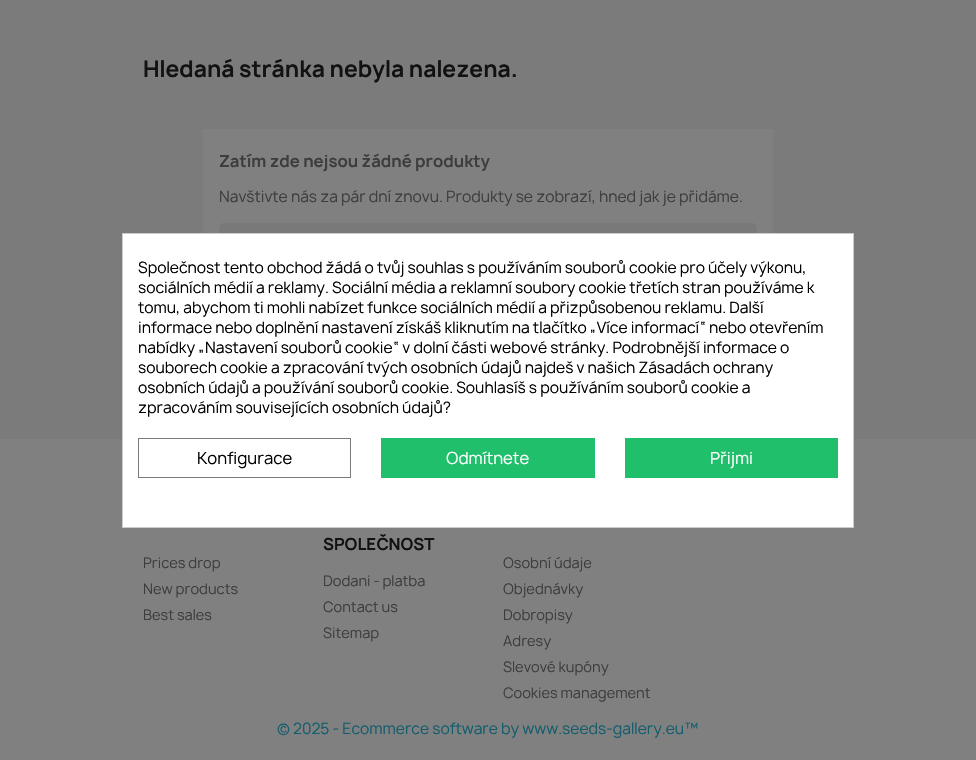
#include "include/core/SkBlurTypes.h"
#include "include/core/SkCanvas.h"
#include "include/core/SkData.h"
#include "include/core/SkFont.h"
#include "include/core/SkFontMgr.h"
#include "include/core/SkImage.h"
#include "include/core/SkMaskFilter.h"
#include "include/core/SkPaint.h"
#include "include/core/SkPathBuilder.h"
#include "include/core/SkTextBlob.h"
#include "include/effects/SkDashPathEffect.h"
#include "include/effects/SkGradientShader.h"
#include "include/utils/SkParsePath.h"

extern sk_sp<SkFontMgr> fontMgr;

static SkFont font(const char* family, int weight, float size, bool italic = false) {
    SkFontStyle style(weight, SkFontStyle::kNormal_Width,
        italic ? SkFontStyle::kItalic_Slant : SkFontStyle::kUpright_Slant);
    SkFont result(fontMgr->matchFamilyStyle(family, style), size);
    result.setSubpixel(true);
    return result;
}

static void drawLabel(SkCanvas* canvas, const char* s, float x, float y, const SkFont& font, SkColor color) {
    SkPaint ink(SkColor4f::FromColor(color));
    ink.setAntiAlias(true);
    canvas->drawString(s, x, y, font, ink);
}

static void fillRect(SkCanvas* canvas, float x, float y, float w, float h, SkColor color) {
    SkPaint ink(SkColor4f::FromColor(color));
    ink.setAntiAlias(true);
    canvas->drawRect(SkRect::MakeXYWH(x, y, w, h), ink);
}

static void fillRRect(SkCanvas* canvas, float x, float y, float w, float h, float radius, SkColor color) {
    SkPaint ink(SkColor4f::FromColor(color));
    ink.setAntiAlias(true);
    canvas->drawRoundRect(SkRect::MakeXYWH(x, y, w, h), radius, radius, ink);
}

void draw(SkCanvas* canvas) {
    SkPaint paint;
    paint.setAntiAlias(true);
    canvas->clear(0xFF808080);
    fillRect(canvas, 0, 0, 976, 439, 0xFF7B7B7B);
    SkFont font1 = font("Manrope", 700, 22);
    drawLabel(canvas, "Hledaná stránka nebyla nalezena.", 143, 77, font1, 0xFF121212);
    fillRect(canvas, 203, 129, 570, 104, 0xFF808080);
    SkFont font2 = font("Manrope", 700, 16);
    drawLabel(canvas, "Zatím zde nejsou žádné produkty", 219, 167, font2, 0xFF3D3D3D);
    SkFont font3 = font("Manrope", 400, 15);
    drawLabel(canvas, "Navštivte nás za pár dní znovu. Produkty se zobrazí, hned jak je přidáme.", 219, 202, font3, 0xFF3D3D3D);
    fillRRect(canvas, 219, 223, 538, 40, 5, 0xFF797979);
    SkFont font4 = font("Manrope", 400, 14);
    drawLabel(canvas, "Prices drop", 143, 568, font4, 0xFF3D3D3D);
    drawLabel(canvas, "New products", 143, 594, font4, 0xFF3D3D3D);
    drawLabel(canvas, "Best sales", 143, 620, font4, 0xFF3D3D3D);
    drawLabel(canvas, "SPOLEČNOST", 323, 550, font2, 0xFF121212);
    drawLabel(canvas, "Dodani - platba", 323, 586, font4, 0xFF3D3D3D);
    drawLabel(canvas, "Contact us", 323, 612, font4, 0xFF3D3D3D);
    drawLabel(canvas, "Sitemap", 323, 638, font4, 0xFF3D3D3D);
    drawLabel(canvas, "Osobní údaje", 503, 568, font4, 0xFF3D3D3D);
    drawLabel(canvas, "Objednávky", 503, 594, font4, 0xFF3D3D3D);
    drawLabel(canvas, "Dobropisy", 503, 620, font4, 0xFF3D3D3D);
    drawLabel(canvas, "Adresy", 503, 646, font4, 0xFF3D3D3D);
    drawLabel(canvas, "Slevové kupóny", 503, 672, font4, 0xFF3D3D3D);
    drawLabel(canvas, "Cookies management", 503, 698, font4, 0xFF3D3D3D);
    drawLabel(canvas, "© 2025 - Ecommerce software by www.seeds-gallery.eu™", 277, 734, font3, 0xFF125D6C);
    paint.setColor(0xFFFFFFFF);
    canvas->drawRect(SkRect::MakeXYWH(122.5f, 233.5f, 731, 294), paint);
    paint.setStroke(true);
    paint.setStrokeWidth(1);
    paint.setColor(0xFFCCCCCC);
    canvas->drawRect(SkRect::MakeXYWH(122.5f, 233.5f, 731, 294), paint);
    drawLabel(canvas, "Společnost tento obchod žádá o tvůj souhlas s používáním souborů cookie pro účely výkonu,", 138, 273, font3, 0xFF000000);
    drawLabel(canvas, "sociálních médií a reklamy. Sociální média a reklamní soubory cookie třetích stran používáme k", 138, 293, font3, 0xFF000000);
    drawLabel(canvas, "tomu, abychom ti mohli nabízet funkce sociálních médií a přizpůsobenou reklamu. Další", 138, 313, font3, 0xFF000000);
    drawLabel(canvas, "informace nebo doplnění nastavení získáš kliknutím na tlačítko „Více informací“ nebo otevřením", 138, 333, font3, 0xFF000000);
    drawLabel(canvas, "nabídky „Nastavení souborů cookie“ v dolní části webové stránky. Podrobnější informace o", 138, 353, font3, 0xFF000000);
    drawLabel(canvas, "souborech cookie a zpracování tvých osobních údajů najdeš v našich Zásadách ochrany", 138, 373, font3, 0xFF000000);
    drawLabel(canvas, "osobních údajů a používání souborů cookie. Souhlasíš s používáním souborů cookie a", 138, 393, font3, 0xFF000000);
    drawLabel(canvas, "zpracováním souvisejících osobních údajů?", 138, 413, font3, 0xFF000000);
    paint.setColor(0xFF7A7A7A);
    canvas->drawRect(SkRect::MakeXYWH(138.5f, 438.5f, 212, 39), paint);
    SkFont font5 = font("Manrope", 400, 16);
    drawLabel(canvas, "Konfigurace", 197, 464, font5, 0xFF000000);
    fillRect(canvas, 381, 438, 214, 40, 0xFF20BF6B);
    drawLabel(canvas, "Odmítnete", 446, 464, font5, 0xFFFFFFFF);
    fillRect(canvas, 625, 438, 213, 40, 0xFF20BF6B);
    drawLabel(canvas, "Přijmi", 710, 464, font5, 0xFFFFFFFF);
}
